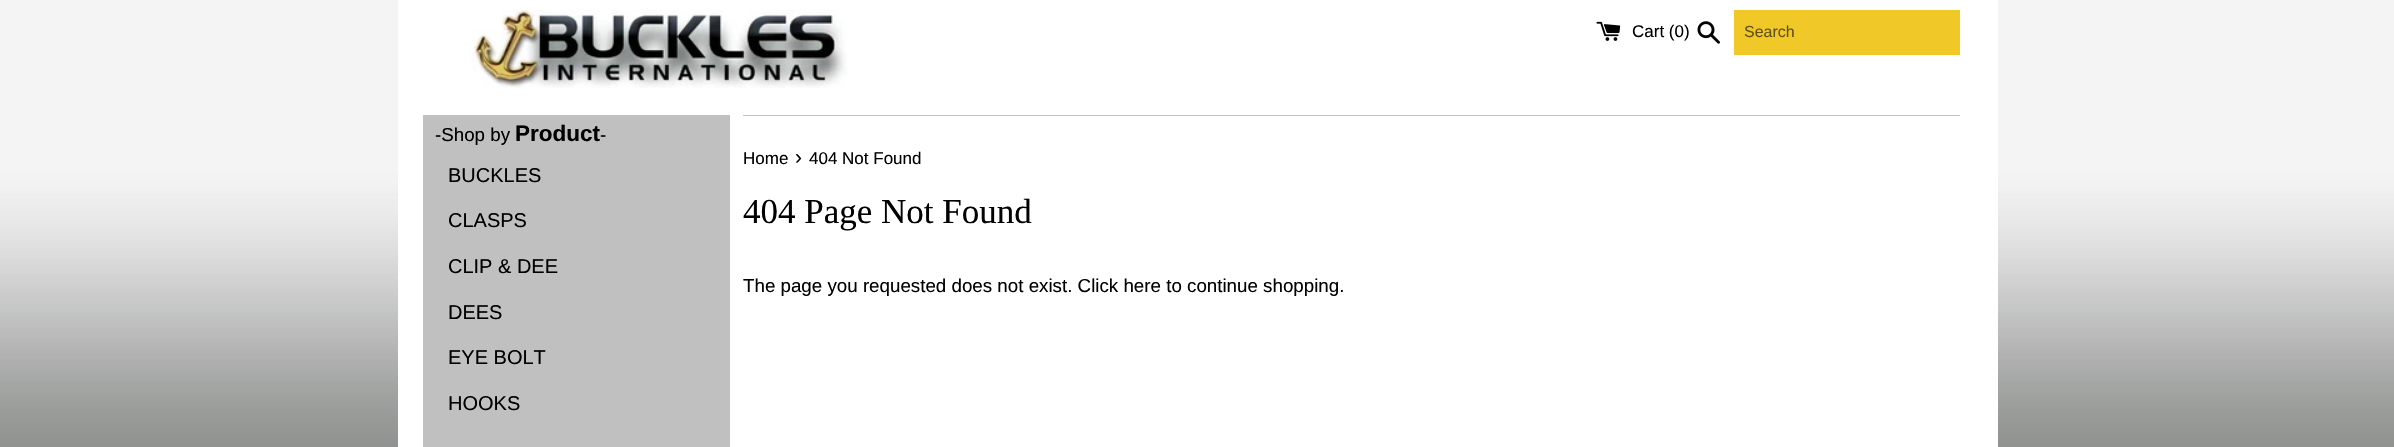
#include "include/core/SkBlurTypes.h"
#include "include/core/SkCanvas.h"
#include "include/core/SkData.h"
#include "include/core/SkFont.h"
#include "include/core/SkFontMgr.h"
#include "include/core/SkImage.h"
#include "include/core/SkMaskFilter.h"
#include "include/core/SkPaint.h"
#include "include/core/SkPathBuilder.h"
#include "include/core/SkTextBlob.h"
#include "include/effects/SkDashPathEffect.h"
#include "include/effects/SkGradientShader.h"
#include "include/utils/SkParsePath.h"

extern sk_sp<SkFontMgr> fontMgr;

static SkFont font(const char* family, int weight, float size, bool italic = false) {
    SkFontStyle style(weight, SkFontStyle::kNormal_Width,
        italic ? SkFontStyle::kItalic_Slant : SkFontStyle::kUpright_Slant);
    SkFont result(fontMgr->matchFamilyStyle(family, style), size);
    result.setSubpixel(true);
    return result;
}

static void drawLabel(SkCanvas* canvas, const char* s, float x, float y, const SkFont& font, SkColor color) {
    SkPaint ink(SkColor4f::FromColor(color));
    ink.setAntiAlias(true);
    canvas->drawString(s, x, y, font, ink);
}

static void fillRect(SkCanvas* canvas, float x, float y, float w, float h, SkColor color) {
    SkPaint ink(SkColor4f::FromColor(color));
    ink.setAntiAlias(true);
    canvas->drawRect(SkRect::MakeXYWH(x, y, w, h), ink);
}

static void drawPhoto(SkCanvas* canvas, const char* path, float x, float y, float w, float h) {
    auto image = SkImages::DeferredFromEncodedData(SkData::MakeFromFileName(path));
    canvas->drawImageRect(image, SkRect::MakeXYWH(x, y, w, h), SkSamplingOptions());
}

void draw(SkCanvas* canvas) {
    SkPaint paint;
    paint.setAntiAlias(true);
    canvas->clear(0xFFFFFFFF);
    drawPhoto(canvas, "assets/img1.png", 0, 0, 2394, 447);
    fillRect(canvas, 398, 0, 1600, 447, 0xFFFFFFFF);
    drawPhoto(canvas, "assets/img2.png", 472, 10, 375, 78);
    drawPhoto(canvas, "assets/img3.png", 1596, 21, 25, 20);
    SkFont font1 = font("Liberation Sans", 400, 17);
    drawLabel(canvas, "Cart (0)", 1632, 37, font1, 0xFF000000);
    drawPhoto(canvas, "assets/img4.png", 1697, 21, 23, 23);
    fillRect(canvas, 1734, 10, 226, 45, 0xFFF0C828);
    SkFont font2 = font("Liberation Sans", 400, 16);
    drawLabel(canvas, "Search", 1744, 37, font2, 0xFF605010);
    fillRect(canvas, 423, 115, 307, 332, 0xFFC0C0C0);
    SkFont font3 = font("Liberation Sans", 400, 18.75f);
    drawLabel(canvas, "-Shop by", 435, 141, font3, 0xFF000000);
    SkFont font4 = font("Liberation Sans", 700, 22.5f);
    drawLabel(canvas, "Product", 515, 141, font4, 0xFF000000);
    drawLabel(canvas, "-", 600, 141, font3, 0xFF000000);
    SkFont font5 = font("Liberation Sans", 400, 20);
    drawLabel(canvas, "BUCKLES", 448, 182, font5, 0xFF000000);
    drawLabel(canvas, "CLASPS", 448, 227, font5, 0xFF000000);
    drawLabel(canvas, "CLIP & DEE", 448, 273, font5, 0xFF000000);
    drawLabel(canvas, "DEES", 448, 319, font5, 0xFF000000);
    drawLabel(canvas, "EYE BOLT", 448, 364, font5, 0xFF000000);
    drawLabel(canvas, "HOOKS", 448, 410, font5, 0xFF000000);
    fillRect(canvas, 743, 115, 1217, 1, 0xFFC0C0C0);
    drawLabel(canvas, "Home", 743, 164, font1, 0xFF000000);
    SkFont font6 = font("Liberation Sans", 400, 21);
    drawLabel(canvas, "›", 795, 164, font6, 0xFF000000);
    drawLabel(canvas, "404 Not Found", 809, 164, font1, 0xFF000000);
    SkFont font7 = font("Liberation Serif", 400, 35);
    drawLabel(canvas, "404 Page Not Found", 743, 223, font7, 0xFF000000);
    drawLabel(canvas, "The page you requested does not exist. Click here to continue shopping.", 743, 292, font3, 0xFF000000);
}
